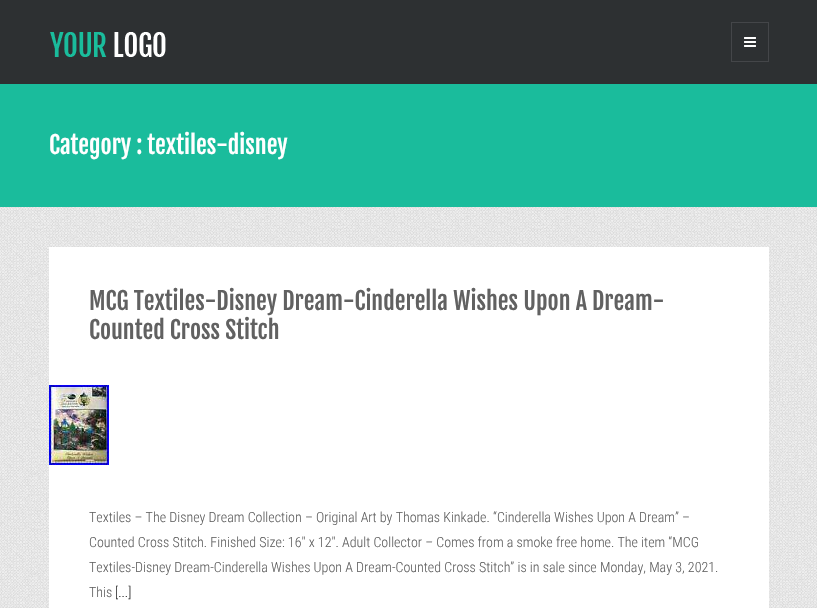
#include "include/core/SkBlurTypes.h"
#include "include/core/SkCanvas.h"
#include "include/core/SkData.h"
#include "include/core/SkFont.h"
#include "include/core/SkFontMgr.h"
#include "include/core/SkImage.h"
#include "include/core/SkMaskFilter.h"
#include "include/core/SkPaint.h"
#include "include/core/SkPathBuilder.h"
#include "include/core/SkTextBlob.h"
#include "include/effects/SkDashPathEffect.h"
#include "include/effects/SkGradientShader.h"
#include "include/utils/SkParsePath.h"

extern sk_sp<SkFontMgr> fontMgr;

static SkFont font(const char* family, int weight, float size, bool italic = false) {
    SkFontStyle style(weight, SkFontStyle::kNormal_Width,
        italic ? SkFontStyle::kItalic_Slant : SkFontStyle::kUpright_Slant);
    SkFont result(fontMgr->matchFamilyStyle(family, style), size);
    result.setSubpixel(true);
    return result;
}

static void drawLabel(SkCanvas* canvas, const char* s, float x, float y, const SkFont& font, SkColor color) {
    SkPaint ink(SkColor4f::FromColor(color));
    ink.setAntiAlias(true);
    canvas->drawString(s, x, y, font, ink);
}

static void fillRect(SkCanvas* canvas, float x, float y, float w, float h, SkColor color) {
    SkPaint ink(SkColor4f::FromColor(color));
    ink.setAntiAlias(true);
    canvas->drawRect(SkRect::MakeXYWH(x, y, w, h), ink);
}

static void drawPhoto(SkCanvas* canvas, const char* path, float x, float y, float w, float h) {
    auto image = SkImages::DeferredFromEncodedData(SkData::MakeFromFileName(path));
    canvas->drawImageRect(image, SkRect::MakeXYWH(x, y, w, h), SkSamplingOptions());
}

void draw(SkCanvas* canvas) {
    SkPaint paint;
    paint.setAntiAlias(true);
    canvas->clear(0xFFFFFFFF);
    drawPhoto(canvas, "assets/img1.png", 0, 207, 817, 401);
    fillRect(canvas, 0, 0, 817, 84, 0xFF2D3032);
    drawPhoto(canvas, "assets/img2.png", 50, 32, 116, 25);
    paint.setStroke(true);
    paint.setStrokeWidth(1);
    paint.setColor(0xFF444649);
    canvas->drawRect(SkRect::MakeXYWH(731.5f, 22.5f, 37, 39), paint);
    drawPhoto(canvas, "assets/img3.png", 744, 37, 12, 10);
    fillRect(canvas, 0, 84, 817, 123, 0xFF1ABC9C);
    SkFont font1 = font("Fjalla One", 400, 24);
    drawLabel(canvas, "Category : textiles-disney", 49, 154, font1, 0xFFFFFFFF);
    fillRect(canvas, 49, 247, 720, 98, 0xFFFFFFFF);
    drawLabel(canvas, "MCG Textiles-Disney Dream-Cinderella Wishes Upon A Dream-", 89, 310, font1, 0xFF616161);
    drawLabel(canvas, "Counted Cross Stitch", 89, 339, font1, 0xFF616161);
    fillRect(canvas, 49, 345, 720, 263, 0xFFFFFFFF);
    drawPhoto(canvas, "assets/img4.png", 49, 385, 60, 80);
    SkFont font2 = font("Roboto Condensed", 300, 14);
    drawLabel(canvas, "Textiles – The Disney Dream Collection – Original Art by Thomas Kinkade. “Cinderella Wishes Upon A Dream” –", 89, 522, font2, 0xFF616161);
    drawLabel(canvas, "Counted Cross Stitch. Finished Size: 16″ x 12″. Adult Collector – Comes from a smoke free home. The item “MCG", 89, 547, font2, 0xFF616161);
    drawLabel(canvas, "Textiles-Disney Dream-Cinderella Wishes Upon A Dream-Counted Cross Stitch” is in sale since Monday, May 3, 2021.", 89, 572, font2, 0xFF616161);
    drawLabel(canvas, "This", 89, 597, font2, 0xFF616161);
    drawLabel(canvas, "[...]", 115, 597, font2, 0xFF333333);
}
